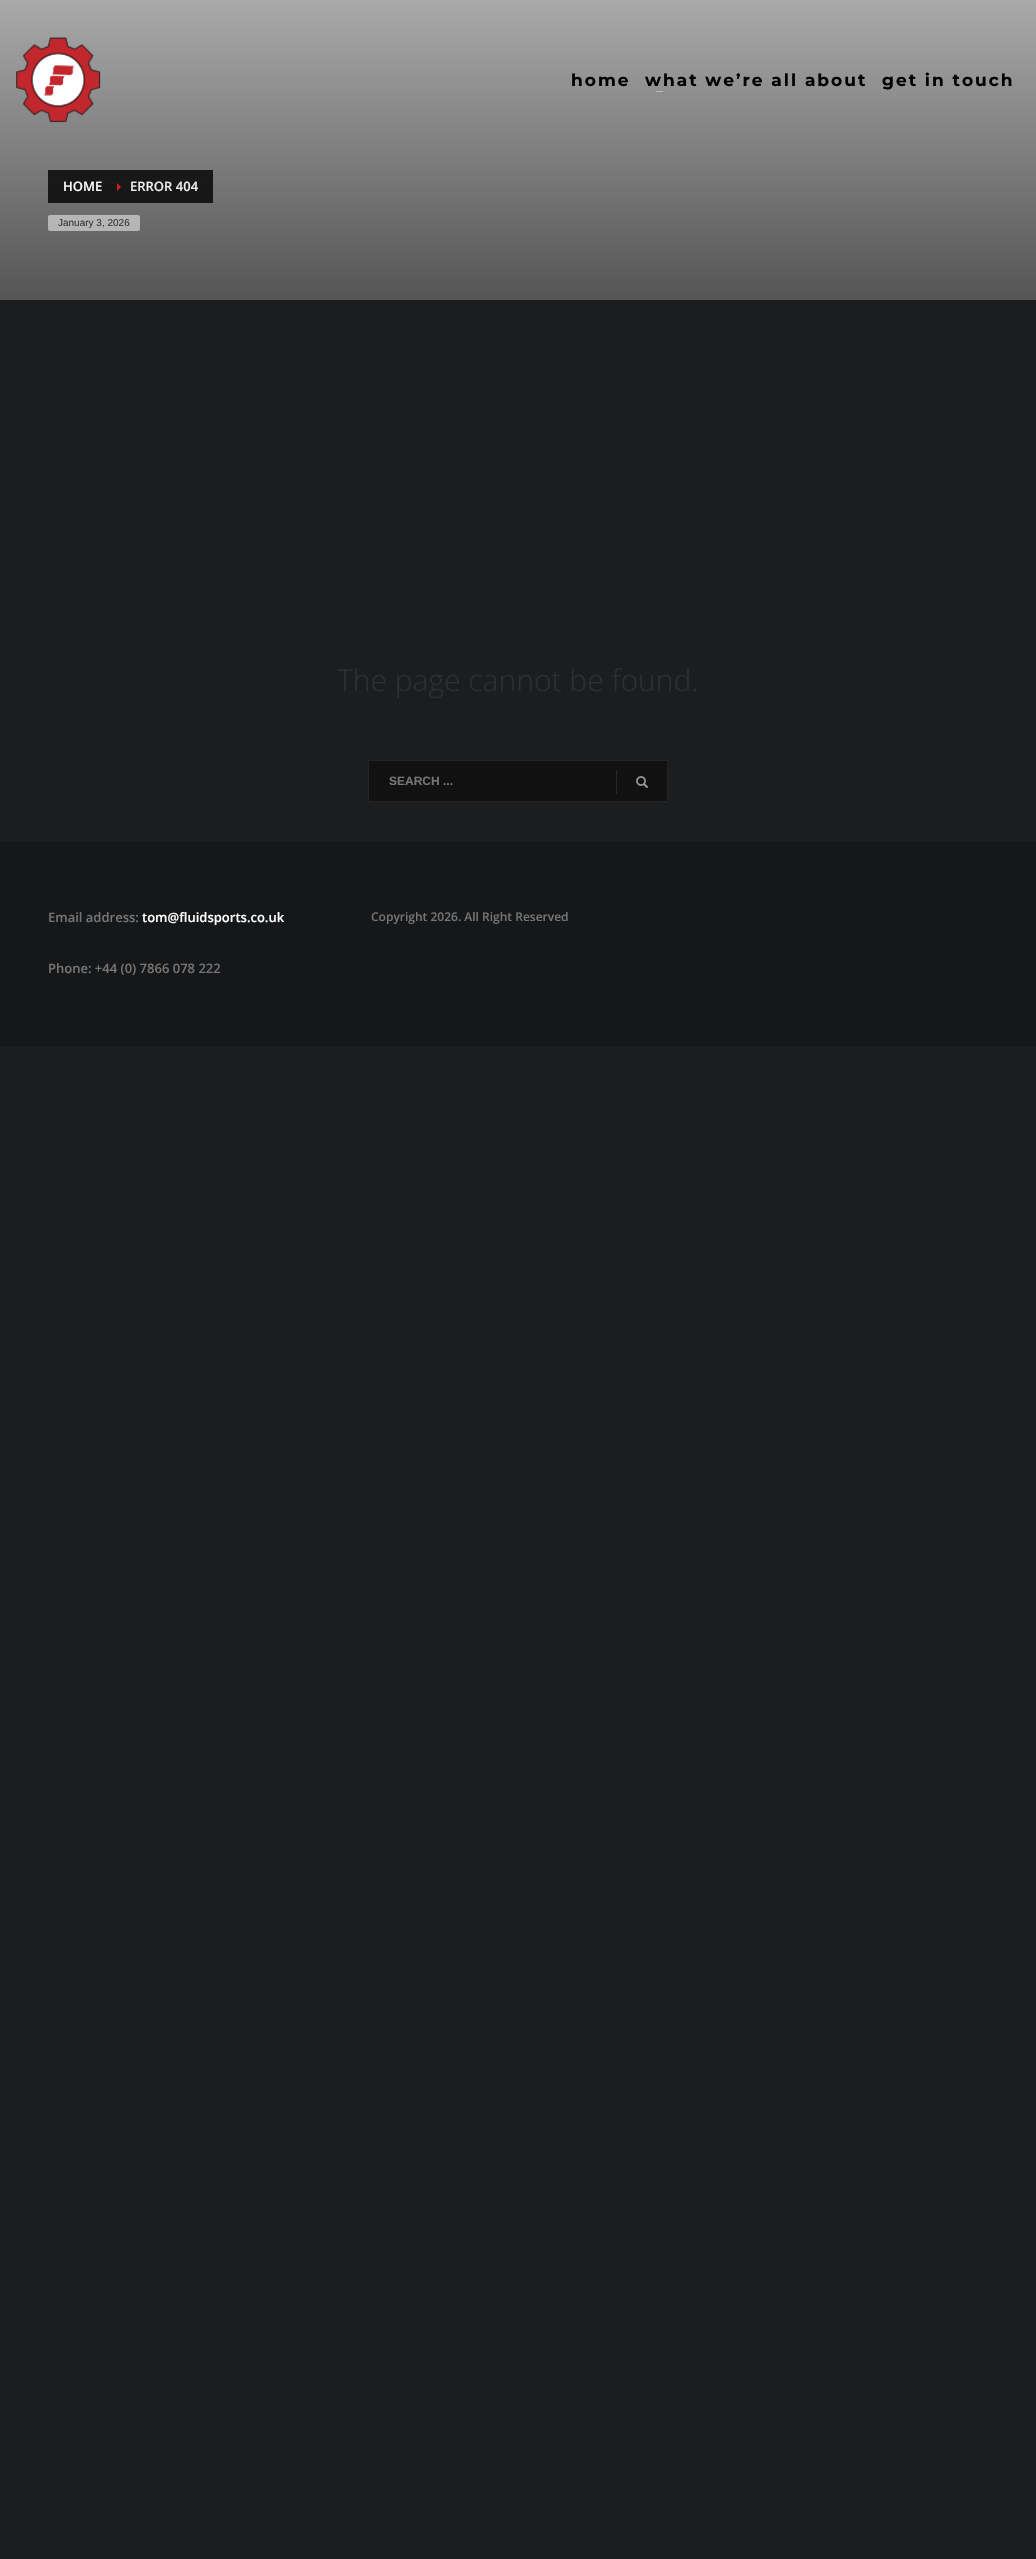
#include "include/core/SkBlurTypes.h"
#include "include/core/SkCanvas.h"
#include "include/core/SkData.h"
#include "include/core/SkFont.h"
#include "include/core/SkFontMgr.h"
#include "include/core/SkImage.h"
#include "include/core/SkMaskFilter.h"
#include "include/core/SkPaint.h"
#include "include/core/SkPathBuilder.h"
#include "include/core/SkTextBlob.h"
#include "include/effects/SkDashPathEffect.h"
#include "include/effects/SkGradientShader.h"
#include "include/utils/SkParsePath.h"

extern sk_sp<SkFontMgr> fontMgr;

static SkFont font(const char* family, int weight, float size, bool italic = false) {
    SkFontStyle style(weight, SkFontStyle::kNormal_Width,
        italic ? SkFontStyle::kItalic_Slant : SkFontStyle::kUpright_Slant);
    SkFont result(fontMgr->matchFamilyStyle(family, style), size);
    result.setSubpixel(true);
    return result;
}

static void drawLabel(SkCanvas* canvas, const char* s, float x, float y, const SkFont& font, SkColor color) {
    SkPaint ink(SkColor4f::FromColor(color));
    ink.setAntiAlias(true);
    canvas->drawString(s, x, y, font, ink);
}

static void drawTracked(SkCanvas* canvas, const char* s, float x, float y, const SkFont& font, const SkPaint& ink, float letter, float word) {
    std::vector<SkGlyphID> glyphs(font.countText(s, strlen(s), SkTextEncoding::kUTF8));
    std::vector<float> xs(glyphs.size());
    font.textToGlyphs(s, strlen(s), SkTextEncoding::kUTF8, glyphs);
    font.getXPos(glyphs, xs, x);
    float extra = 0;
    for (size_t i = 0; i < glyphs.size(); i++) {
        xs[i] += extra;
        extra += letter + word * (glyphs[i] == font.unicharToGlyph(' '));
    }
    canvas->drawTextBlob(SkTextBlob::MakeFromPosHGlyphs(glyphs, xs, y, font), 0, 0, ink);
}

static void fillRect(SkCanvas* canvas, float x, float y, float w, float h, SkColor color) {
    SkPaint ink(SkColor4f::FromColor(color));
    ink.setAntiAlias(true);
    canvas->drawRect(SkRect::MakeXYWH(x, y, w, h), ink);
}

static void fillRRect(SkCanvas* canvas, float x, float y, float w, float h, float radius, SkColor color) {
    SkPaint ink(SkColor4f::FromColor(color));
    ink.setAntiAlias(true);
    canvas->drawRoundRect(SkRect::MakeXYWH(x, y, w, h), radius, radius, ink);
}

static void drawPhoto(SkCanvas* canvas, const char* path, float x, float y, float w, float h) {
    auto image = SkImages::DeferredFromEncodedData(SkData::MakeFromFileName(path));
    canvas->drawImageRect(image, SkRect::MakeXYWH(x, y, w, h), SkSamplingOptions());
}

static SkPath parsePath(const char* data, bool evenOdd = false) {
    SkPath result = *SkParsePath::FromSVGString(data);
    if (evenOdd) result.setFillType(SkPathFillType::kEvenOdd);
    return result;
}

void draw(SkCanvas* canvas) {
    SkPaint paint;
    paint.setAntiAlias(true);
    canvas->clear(0xFF1C1D1F);
    {
        const SkColor colors[] = {0xFFA9A9A9, 0xFF555555};
        const float stops[] = {0, 1};
        const SkPoint ends[] = {{518, 0}, {518, 300}};
        paint.setShader(SkGradientShader::MakeLinear(ends, colors, stops, 2, SkTileMode::kClamp));
        paint.setAlpha(255);
    }
    canvas->drawRect(SkRect::MakeXYWH(0, 0, 1036, 300), paint);
    drawPhoto(canvas, "assets/img1.png", 16, 37, 85, 86);
    SkFont font1 = font("Montserrat", 700, 17);
    paint.setShader(nullptr);
    paint.setColor(0xFF000000);
    drawTracked(canvas, "home", 571, 86, font1, paint, 2, 0);
    drawTracked(canvas, "what we’re all about", 645, 86, font1, paint, 2, 0);
    fillRect(canvas, 656, 91, 7, 1, 0xFFBCBCBC);
    drawTracked(canvas, "get in touch", 882, 86, font1, paint, 2, 0);
    {
        const SkColor colors[] = {0xFF222222, 0xFF111111};
        const float stops[] = {0, 1};
        const SkPoint ends[] = {{518, 0}, {518, 300}};
        paint.setShader(SkGradientShader::MakeLinear(ends, colors, stops, 2, SkTileMode::kClamp));
        paint.setAlpha(255);
    }
    canvas->drawRect(SkRect::MakeXYWH(107, 170, 106, 33), paint);
    canvas->drawRect(SkRect::MakeXYWH(48, 170, 59, 33), paint);
    SkFont font2 = font("Open Sans", 600, 13);
    drawLabel(canvas, "HOME", 63, 191, font2, 0xFFFFFFFF);
    paint.setShader(nullptr);
    paint.setColor(0xFFCD2122);
    canvas->drawPath(parsePath("M117 191V183L121 187Z"), paint);
    drawLabel(canvas, "ERROR 404", 130, 191, font2, 0xFFEEEEEE);
    fillRRect(canvas, 48, 215, 92, 16, 2, 0x80FFFFFF);
    SkFont font3 = font("Liberation Sans", 400, 10);
    drawLabel(canvas, "January 3, 2026", 58, 226, font3, 0xFF383838);
    SkFont font4 = font("Open Sans", 300, 30);
    drawLabel(canvas, "The page cannot be found.", 337, 691, font4, 0xFF2E2F31);
    paint.setColor(0xFF111111);
    canvas->drawRect(SkRect::MakeXYWH(368.5f, 760.5f, 299, 41), paint);
    paint.setStroke(true);
    paint.setStrokeWidth(1);
    paint.setColor(0xFF252525);
    canvas->drawRect(SkRect::MakeXYWH(368.5f, 760.5f, 299, 41), paint);
    SkFont font5 = font("Liberation Sans", 700, 12);
    drawLabel(canvas, "SEARCH ...", 389, 785, font5, 0xFF757575);
    fillRect(canvas, 616, 770, 1, 24, 0xFF292929);
    drawPhoto(canvas, "assets/img2.png", 636, 776, 12, 12);
    fillRect(canvas, 0, 842, 1036, 204, 0xFF161719);
    drawLabel(canvas, "Email address:", 48, 922, font2, 0xFF757575);
    drawLabel(canvas, "tom@fluidsports.co.uk", 142, 922, font2, 0xFFFFFFFF);
    drawLabel(canvas, "Phone: +44 (0) 7866 078 222", 48, 973, font2, 0xFF757575);
    SkFont font6 = font("Open Sans", 600, 12);
    drawLabel(canvas, "Copyright 2026. All Right Reserved", 371, 921, font6, 0xFF757575);
}
